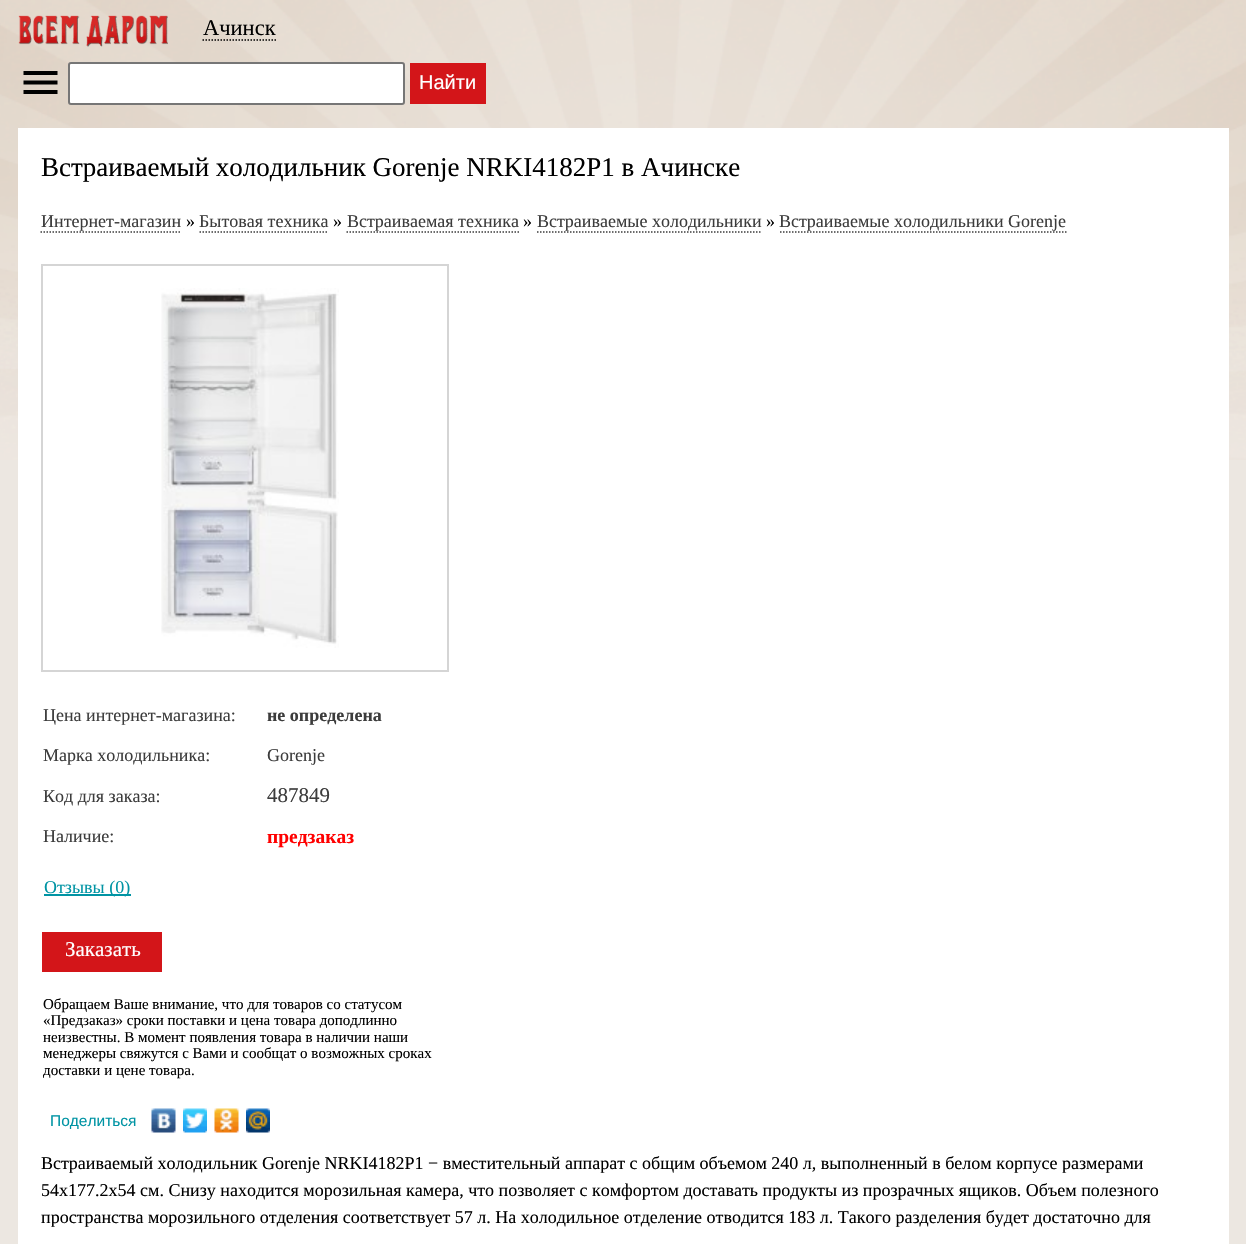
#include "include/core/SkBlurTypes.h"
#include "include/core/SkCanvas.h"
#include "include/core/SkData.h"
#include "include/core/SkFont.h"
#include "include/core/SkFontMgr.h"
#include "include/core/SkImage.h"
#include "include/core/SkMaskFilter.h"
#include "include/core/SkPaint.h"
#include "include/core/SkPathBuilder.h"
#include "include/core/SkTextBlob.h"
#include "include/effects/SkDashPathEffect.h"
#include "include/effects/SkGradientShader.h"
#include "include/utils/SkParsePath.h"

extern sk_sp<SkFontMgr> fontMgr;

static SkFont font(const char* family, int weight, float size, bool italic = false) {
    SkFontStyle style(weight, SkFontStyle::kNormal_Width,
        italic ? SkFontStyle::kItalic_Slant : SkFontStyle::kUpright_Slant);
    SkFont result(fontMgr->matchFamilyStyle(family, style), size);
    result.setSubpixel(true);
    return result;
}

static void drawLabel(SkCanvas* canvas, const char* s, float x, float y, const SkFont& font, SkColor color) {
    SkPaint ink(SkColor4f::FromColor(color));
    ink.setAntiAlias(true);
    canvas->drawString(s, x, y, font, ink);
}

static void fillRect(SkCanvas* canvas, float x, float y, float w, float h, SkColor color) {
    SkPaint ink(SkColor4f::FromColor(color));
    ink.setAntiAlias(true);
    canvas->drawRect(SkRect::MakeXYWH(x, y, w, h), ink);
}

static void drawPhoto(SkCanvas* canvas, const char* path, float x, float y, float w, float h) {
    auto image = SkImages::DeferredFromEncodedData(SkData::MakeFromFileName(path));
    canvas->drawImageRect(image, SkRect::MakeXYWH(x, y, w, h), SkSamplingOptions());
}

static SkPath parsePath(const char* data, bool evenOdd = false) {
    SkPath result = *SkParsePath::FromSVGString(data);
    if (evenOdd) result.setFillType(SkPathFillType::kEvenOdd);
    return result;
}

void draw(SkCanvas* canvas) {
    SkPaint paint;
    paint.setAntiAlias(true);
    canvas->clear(0xFFECE7E1);
    drawPhoto(canvas, "assets/img1.png", 0, 0, 1246, 460);
    drawPhoto(canvas, "assets/img2.png", 18, 15, 150, 32);
    SkFont font1 = font("Liberation Serif", 400, 22.5f);
    drawLabel(canvas, "Ачинск", 203, 35, font1, 0xFF000000);
    paint.setStroke(true);
    paint.setStrokeWidth(1.5f);
    paint.setColor(0xFF000000);
    paint.setPathEffect(SkDashPathEffect::Make({{1.5f, 1.5f}}, 0));
    canvas->drawPath(parsePath("M202.5 40H276"), paint);
    paint.setPathEffect(nullptr);
    paint.setStroke(false);
    canvas->drawPath(parsePath("M23.5 94H57.5V90H23.5ZM23.5 84.5H57.5V80.5H23.5ZM23.5 71V75H57.5V71Z"), paint);
    paint.setColor(0xFFFFFFFF);
    canvas->drawRoundRect(SkRect::MakeXYWH(69, 63, 335, 41), 2, 2, paint);
    paint.setStroke(true);
    paint.setStrokeWidth(2);
    paint.setColor(0xFF767676);
    canvas->drawRoundRect(SkRect::MakeXYWH(69, 63, 335, 41), 2, 2, paint);
    fillRect(canvas, 410, 63, 76, 41, 0xFFD31519);
    SkFont font2 = font("Liberation Sans", 400, 20);
    drawLabel(canvas, "Найти", 419, 89, font2, 0xFFFFFFFF);
    fillRect(canvas, 18, 128, 1211, 1116, 0xFFFFFFFF);
    SkFont font3 = font("Liberation Serif", 400, 27);
    drawLabel(canvas, "Встраиваемый холодильник Gorenje NRKI4182P1 в Ачинске", 41, 176, font3, 0xFF000000);
    SkFont font4 = font("Liberation Serif", 400, 18);
    drawLabel(canvas, "Интернет-магазин", 41, 227, font4, 0xFF3C3C3C);
    paint.setStrokeWidth(1.5f);
    paint.setColor(0xFF3C3C3C);
    paint.setPathEffect(SkDashPathEffect::Make({{1.5f, 1.5f}}, 0));
    canvas->drawPath(parsePath("M40.5 232H181.5"), paint);
    paint.setPathEffect(nullptr);
    drawLabel(canvas, "»", 186, 227, font4, 0xFF000000);
    drawLabel(canvas, "Бытовая техника", 199, 227, font4, 0xFF3C3C3C);
    paint.setPathEffect(SkDashPathEffect::Make({{1.5f, 1.5f}}, 0));
    canvas->drawPath(parsePath("M199.5 232H328.5"), paint);
    paint.setPathEffect(nullptr);
    drawLabel(canvas, "»", 333, 227, font4, 0xFF000000);
    drawLabel(canvas, "Встраиваемая техника", 347, 227, font4, 0xFF3C3C3C);
    paint.setPathEffect(SkDashPathEffect::Make({{1.5f, 1.5f}}, 0));
    canvas->drawPath(parsePath("M346.5 232H519"), paint);
    paint.setPathEffect(nullptr);
    drawLabel(canvas, "»", 523, 227, font4, 0xFF000000);
    drawLabel(canvas, "Встраиваемые холодильники", 537, 227, font4, 0xFF3C3C3C);
    paint.setPathEffect(SkDashPathEffect::Make({{1.5f, 1.5f}}, 0));
    canvas->drawPath(parsePath("M537 232H762"), paint);
    paint.setPathEffect(nullptr);
    drawLabel(canvas, "»", 766, 227, font4, 0xFF000000);
    drawLabel(canvas, "Встраиваемые холодильники Gorenje", 779, 227, font4, 0xFF3C3C3C);
    paint.setPathEffect(SkDashPathEffect::Make({{1.5f, 1.5f}}, 0));
    canvas->drawPath(parsePath("M780 232H1066.5"), paint);
    paint.setPathEffect(nullptr);
    drawPhoto(canvas, "assets/img3.png", 161, 288, 178, 360);
    paint.setStrokeWidth(2);
    paint.setColor(0xFFD5D5D5);
    canvas->drawRect(SkRect::MakeXYWH(42, 265, 406, 406), paint);
    drawLabel(canvas, "Цена интернет-магазина:", 43, 721, font4, 0xFF3C3C3C);
    SkFont font5 = font("Liberation Serif", 700, 18);
    drawLabel(canvas, "не определена", 267, 721, font5, 0xFF3C3C3C);
    drawLabel(canvas, "Марка холодильника:", 43, 761, font4, 0xFF3C3C3C);
    drawLabel(canvas, "Gorenje", 267, 761, font4, 0xFF3C3C3C);
    drawLabel(canvas, "Код для заказа:", 43, 802, font4, 0xFF3C3C3C);
    SkFont font6 = font("Liberation Serif", 400, 21);
    drawLabel(canvas, "487849", 267, 802, font6, 0xFF3C3C3C);
    drawLabel(canvas, "Наличие:", 43, 842, font4, 0xFF3C3C3C);
    SkFont font7 = font("Liberation Serif", 700, 19.5f);
    drawLabel(canvas, "предзаказ", 267, 843, font7, 0xFFFF0000);
    fillRect(canvas, 44, 894, 87, 2, 0xFF0094A4);
    drawLabel(canvas, "Отзывы (0)", 44, 893, font4, 0xFF0094A4);
    fillRect(canvas, 42, 932, 120, 40, 0xFFD31519);
    drawLabel(canvas, "Заказать", 65, 956, font6, 0xFFFFFFFF);
    SkFont font8 = font("Liberation Serif", 400, 15);
    drawLabel(canvas, "Обращаем Ваше внимание, что для товаров со статусом", 43, 1009, font8, 0xFF000000);
    drawLabel(canvas, "«Предзаказ» сроки поставки и цена товара доподлинно", 43, 1025, font8, 0xFF000000);
    drawLabel(canvas, "неизвестны. В момент появления товара в наличии наши", 43, 1042, font8, 0xFF000000);
    drawLabel(canvas, "менеджеры свяжутся с Вами и сообщат о возможных сроках", 43, 1058, font8, 0xFF000000);
    drawLabel(canvas, "доставки и цене товара.", 43, 1075, font8, 0xFF000000);
    SkFont font9 = font("Liberation Sans", 400, 15.5f);
    drawLabel(canvas, "Поделиться", 50, 1126, font9, 0xFF0094A4);
    drawPhoto(canvas, "assets/img4.png", 151, 1108, 25, 25);
    drawPhoto(canvas, "assets/img5.png", 183, 1108, 24, 25);
    drawPhoto(canvas, "assets/img6.png", 214, 1108, 25, 25);
    drawPhoto(canvas, "assets/img7.png", 246, 1108, 24, 25);
    drawLabel(canvas, "Встраиваемый холодильник Gorenje NRKI4182P1 − вместительный аппарат с общим объемом 240 л, выполненный в белом корпусе размерами", 41, 1169, font4, 0xFF000000);
    drawLabel(canvas, "54x177.2x54 см. Снизу находится морозильная камера, что позволяет с комфортом доставать продукты из прозрачных ящиков. Объем полезного", 41, 1196, font4, 0xFF000000);
    drawLabel(canvas, "пространства морозильного отделения соответствует 57 л. На холодильное отделение отводится 183 л. Такого разделения будет достаточно для", 41, 1223, font4, 0xFF000000);
}
